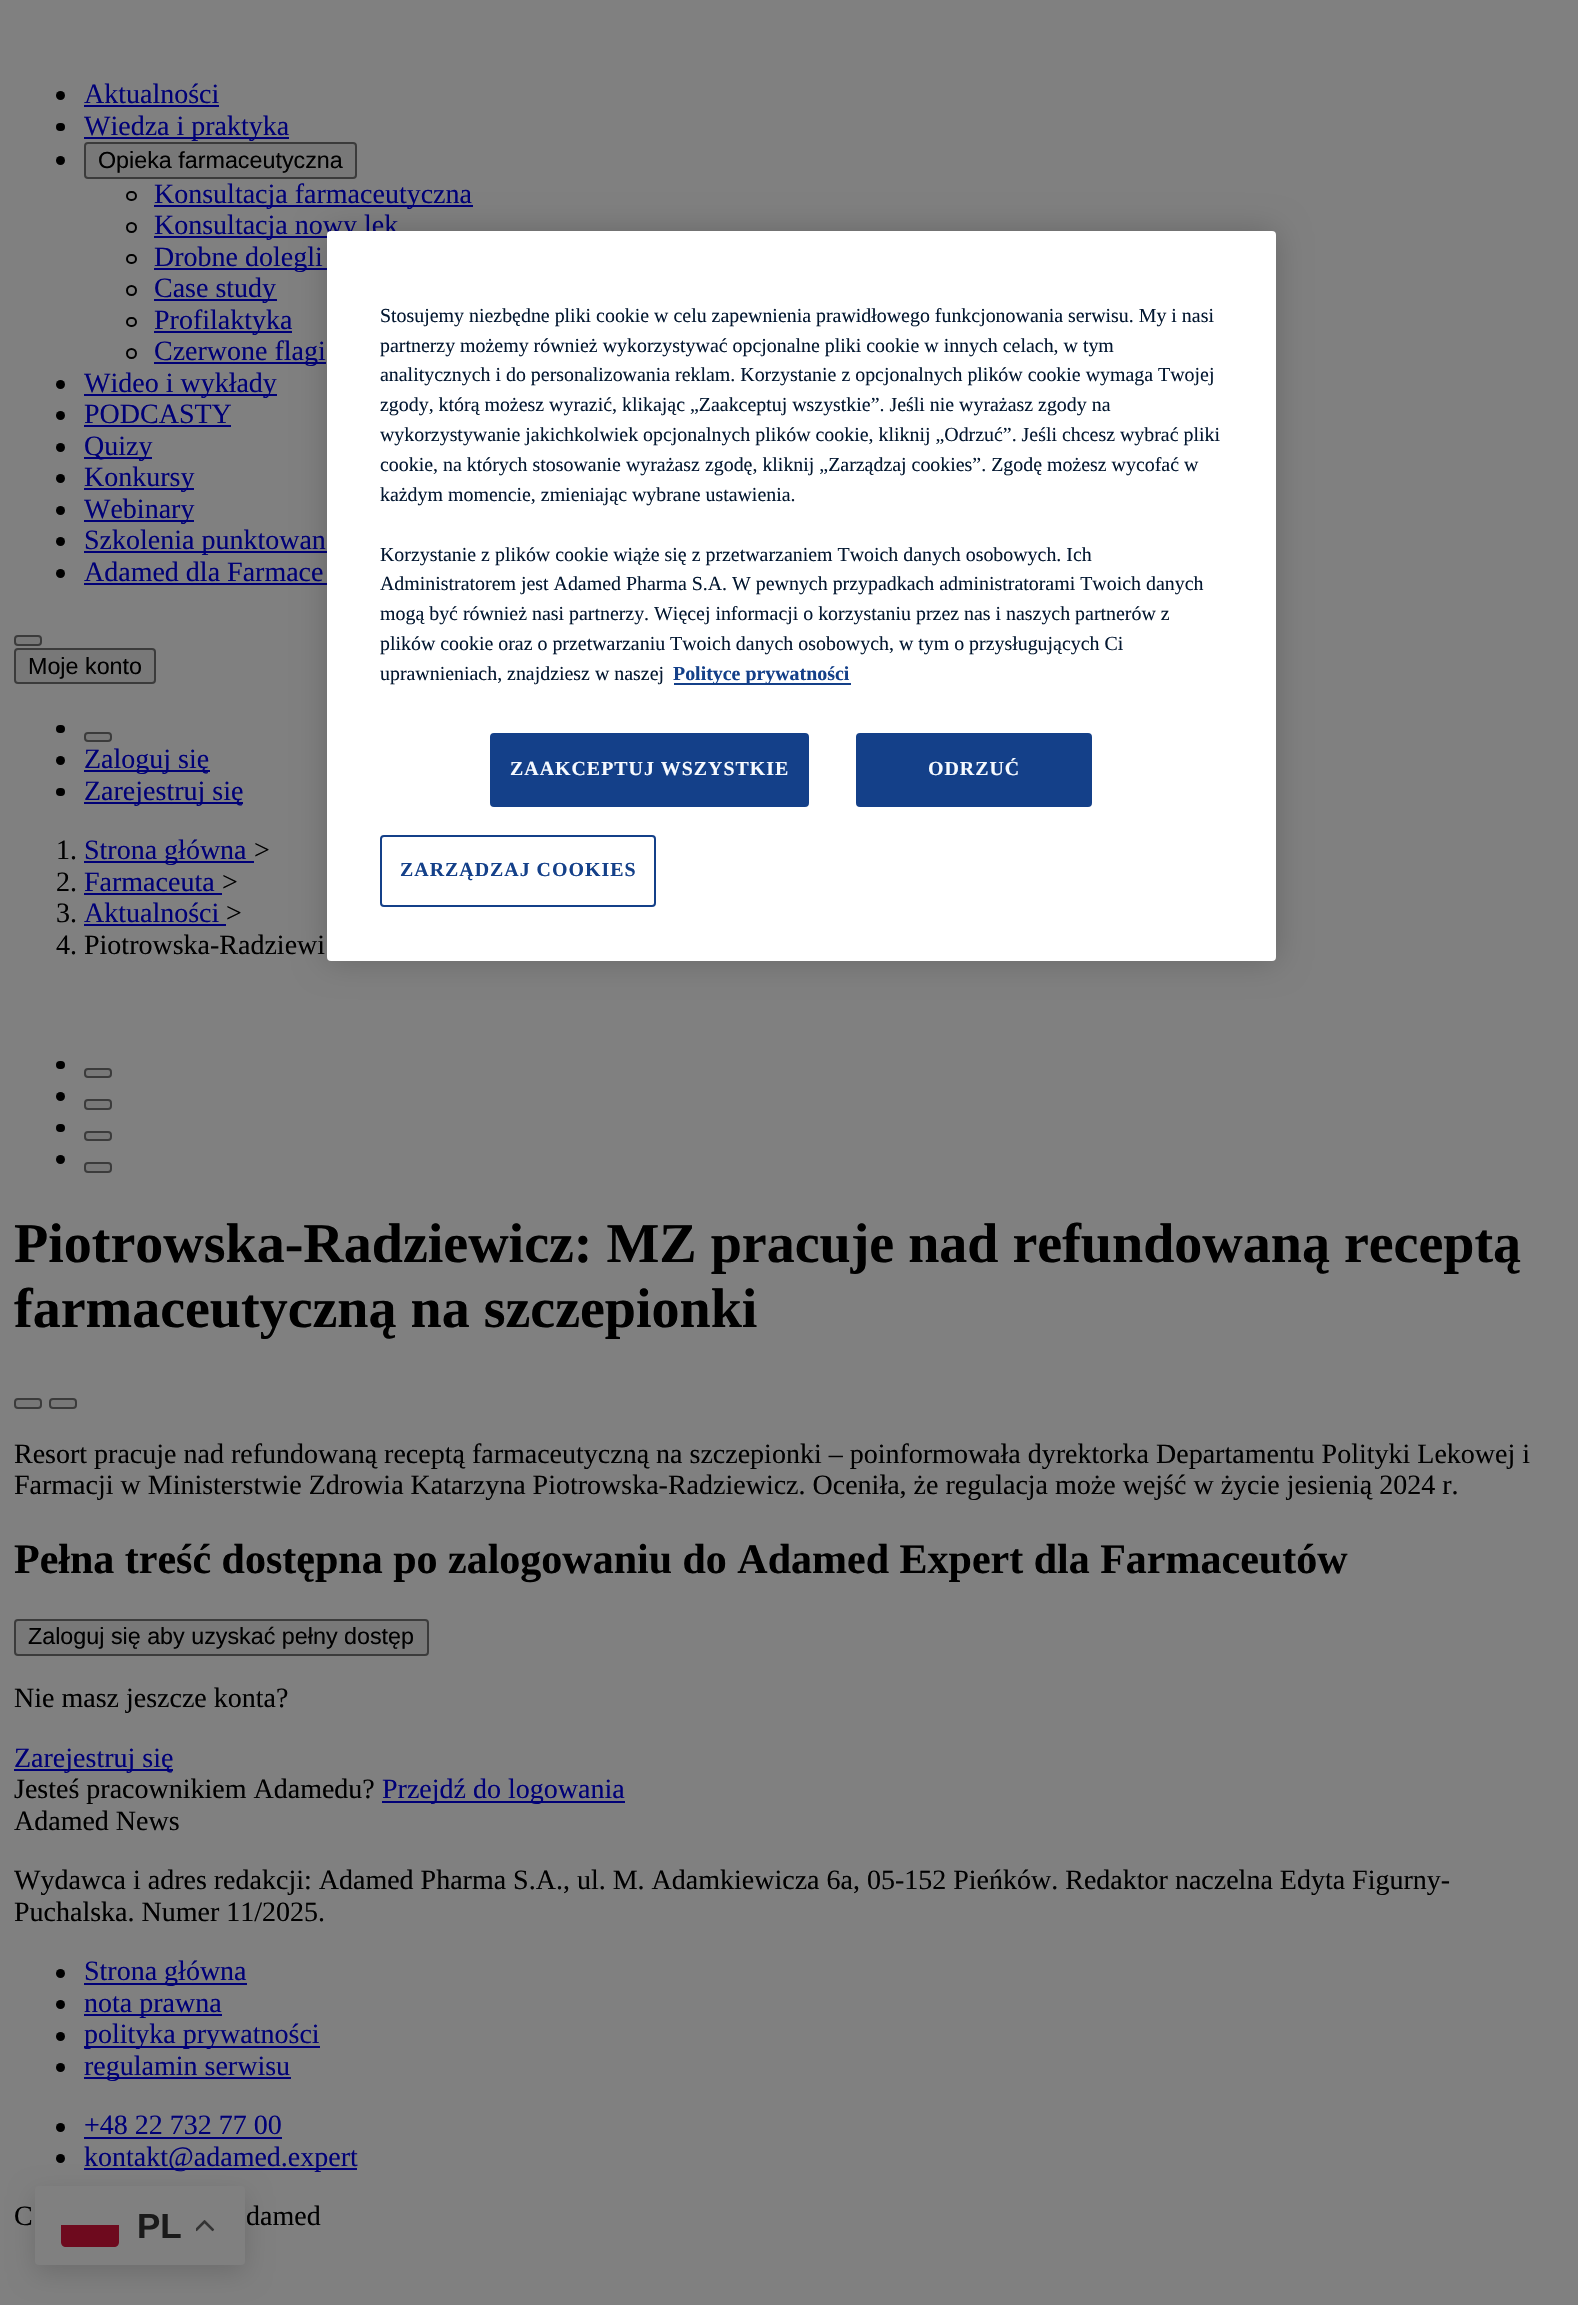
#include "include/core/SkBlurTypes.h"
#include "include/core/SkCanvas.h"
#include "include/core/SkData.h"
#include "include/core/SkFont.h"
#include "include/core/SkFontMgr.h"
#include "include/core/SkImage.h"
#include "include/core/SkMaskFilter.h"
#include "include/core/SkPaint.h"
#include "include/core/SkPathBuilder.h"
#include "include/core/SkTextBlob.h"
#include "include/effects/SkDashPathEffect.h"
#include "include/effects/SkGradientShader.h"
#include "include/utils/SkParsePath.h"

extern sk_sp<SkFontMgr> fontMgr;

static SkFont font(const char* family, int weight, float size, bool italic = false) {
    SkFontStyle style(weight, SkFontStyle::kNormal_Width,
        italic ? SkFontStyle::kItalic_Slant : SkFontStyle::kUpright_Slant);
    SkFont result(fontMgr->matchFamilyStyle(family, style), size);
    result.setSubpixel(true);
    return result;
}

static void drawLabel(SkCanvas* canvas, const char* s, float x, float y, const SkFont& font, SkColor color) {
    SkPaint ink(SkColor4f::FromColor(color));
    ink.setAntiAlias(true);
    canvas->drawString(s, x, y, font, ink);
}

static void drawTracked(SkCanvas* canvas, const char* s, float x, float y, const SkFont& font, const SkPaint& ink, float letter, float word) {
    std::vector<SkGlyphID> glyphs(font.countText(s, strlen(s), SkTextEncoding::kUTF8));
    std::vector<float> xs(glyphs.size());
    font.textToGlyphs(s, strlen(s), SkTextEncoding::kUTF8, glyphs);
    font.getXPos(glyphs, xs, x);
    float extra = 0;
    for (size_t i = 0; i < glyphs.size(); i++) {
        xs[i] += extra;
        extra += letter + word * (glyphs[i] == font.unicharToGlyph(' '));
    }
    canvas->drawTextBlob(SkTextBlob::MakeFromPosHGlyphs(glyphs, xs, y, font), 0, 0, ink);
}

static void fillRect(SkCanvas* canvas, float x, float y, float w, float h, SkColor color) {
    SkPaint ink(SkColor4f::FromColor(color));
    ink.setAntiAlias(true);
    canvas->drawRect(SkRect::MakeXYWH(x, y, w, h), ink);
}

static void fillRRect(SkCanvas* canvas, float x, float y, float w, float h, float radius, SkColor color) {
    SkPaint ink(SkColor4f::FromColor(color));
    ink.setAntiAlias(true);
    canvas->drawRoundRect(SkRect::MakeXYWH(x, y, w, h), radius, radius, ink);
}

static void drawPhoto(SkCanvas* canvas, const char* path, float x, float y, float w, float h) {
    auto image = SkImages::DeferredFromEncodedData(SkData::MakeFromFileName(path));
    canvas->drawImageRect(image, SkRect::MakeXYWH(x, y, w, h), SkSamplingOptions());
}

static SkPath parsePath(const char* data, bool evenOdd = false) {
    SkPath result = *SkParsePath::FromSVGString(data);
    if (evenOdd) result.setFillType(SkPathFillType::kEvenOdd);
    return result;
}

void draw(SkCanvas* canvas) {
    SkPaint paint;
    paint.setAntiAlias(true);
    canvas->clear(0xFF808080);
    paint.setColor(0xFF000000);
    canvas->drawCircle(60.5f, 95.5f, 4.5f, paint);
    SkFont font1 = font("Liberation Serif", 400, 28);
    drawLabel(canvas, "Aktualności", 84, 103, font1, 0xFF000077);
    fillRect(canvas, 84, 105, 135, 2, 0xFF000077);
    fillRRect(canvas, 56, 123, 9, 8, 4, 0xFF000000);
    fillRect(canvas, 84, 137, 205, 2, 0xFF000077);
    drawLabel(canvas, "Wiedza i praktyka", 84, 135, font1, 0xFF000077);
    canvas->drawCircle(60.5f, 160.5f, 4.5f, paint);
    paint.setColor(0xFF787878);
    canvas->drawRoundRect(SkRect::MakeXYWH(85, 143, 271, 35), 3, 3, paint);
    paint.setStroke(true);
    paint.setStrokeWidth(2);
    paint.setColor(0xFF3B3B3B);
    canvas->drawRoundRect(SkRect::MakeXYWH(85, 143, 271, 35), 3, 3, paint);
    SkFont font2 = font("Liberation Sans", 400, 23.3f);
    drawLabel(canvas, "Opieka farmaceutyczna", 98, 168, font2, 0xFF000000);
    paint.setColor(0xFF000000);
    canvas->drawRoundRect(SkRect::MakeXYWH(127, 192, 9, 8), 4, 4, paint);
    fillRect(canvas, 154, 205, 319, 2, 0xFF000077);
    drawLabel(canvas, "Konsultacja farmaceutyczna", 154, 203, font1, 0xFF000077);
    canvas->drawCircle(131.5f, 227.5f, 4.5f, paint);
    fillRect(canvas, 154, 236, 173, 2, 0xFF000077);
    drawLabel(canvas, "Konsultacja nowy lek", 154, 234, font1, 0xFF000077);
    canvas->drawRoundRect(SkRect::MakeXYWH(127, 255, 9, 8), 4, 4, paint);
    fillRect(canvas, 154, 268, 173, 2, 0xFF000077);
    drawLabel(canvas, "Drobne dolegli", 154, 266, font1, 0xFF000077);
    canvas->drawCircle(131.5f, 290.5f, 4.5f, paint);
    fillRect(canvas, 154, 299, 123, 2, 0xFF000077);
    drawLabel(canvas, "Case study", 154, 297, font1, 0xFF000077);
    canvas->drawRoundRect(SkRect::MakeXYWH(127, 318, 9, 8), 4, 4, paint);
    fillRect(canvas, 154, 331, 138, 2, 0xFF000077);
    drawLabel(canvas, "Profilaktyka", 154, 329, font1, 0xFF000077);
    canvas->drawCircle(131.5f, 353.5f, 4.5f, paint);
    fillRect(canvas, 154, 362, 172, 2, 0xFF000077);
    drawLabel(canvas, "Czerwone flagi", 154, 360, font1, 0xFF000077);
    paint.setStroke(false);
    canvas->drawCircle(60.5f, 384.5f, 4.5f, paint);
    fillRect(canvas, 84, 394, 193, 2, 0xFF000077);
    drawLabel(canvas, "Wideo i wykłady", 84, 392, font1, 0xFF000077);
    canvas->drawCircle(60.5f, 415.5f, 4.5f, paint);
    drawLabel(canvas, "PODCASTY", 84, 423, font1, 0xFF000077);
    fillRect(canvas, 84, 425, 147, 2, 0xFF000077);
    canvas->drawCircle(60.5f, 447.5f, 4.5f, paint);
    fillRect(canvas, 84, 457, 68, 2, 0xFF000077);
    drawLabel(canvas, "Quizy", 84, 455, font1, 0xFF000077);
    canvas->drawCircle(60.5f, 478.5f, 4.5f, paint);
    fillRect(canvas, 84, 488, 110, 2, 0xFF000077);
    drawLabel(canvas, "Konkursy", 84, 486, font1, 0xFF000077);
    canvas->drawCircle(60.5f, 510.5f, 4.5f, paint);
    fillRect(canvas, 84, 520, 110, 2, 0xFF000077);
    drawLabel(canvas, "Webinary", 84, 518, font1, 0xFF000077);
    canvas->drawCircle(60.5f, 541.5f, 4.5f, paint);
    fillRect(canvas, 84, 551, 243, 2, 0xFF000077);
    drawLabel(canvas, "Szkolenia punktowan", 84, 549, font1, 0xFF000077);
    canvas->drawCircle(60.5f, 573.5f, 4.5f, paint);
    drawLabel(canvas, "Adamed dla Farmace", 84, 581, font1, 0xFF000077);
    fillRect(canvas, 84, 583, 243, 2, 0xFF000077);
    paint.setColor(0xFF787878);
    canvas->drawRoundRect(SkRect::MakeXYWH(15, 636, 26, 9), 3, 3, paint);
    paint.setStroke(true);
    paint.setColor(0xFF3B3B3B);
    canvas->drawRoundRect(SkRect::MakeXYWH(15, 636, 26, 9), 3, 3, paint);
    paint.setStroke(false);
    paint.setColor(0xFF787878);
    canvas->drawRoundRect(SkRect::MakeXYWH(15, 649, 140, 34), 3, 3, paint);
    paint.setStroke(true);
    paint.setColor(0xFF3B3B3B);
    canvas->drawRoundRect(SkRect::MakeXYWH(15, 649, 140, 34), 3, 3, paint);
    drawLabel(canvas, "Moje konto", 28, 674, font2, 0xFF000000);
    fillRRect(canvas, 56, 725, 9, 8, 4, 0xFF000000);
    paint.setStroke(false);
    paint.setColor(0xFF787878);
    canvas->drawRoundRect(SkRect::MakeXYWH(85, 733, 26, 8), 3, 3, paint);
    paint.setStroke(true);
    paint.setColor(0xFF3B3B3B);
    canvas->drawRoundRect(SkRect::MakeXYWH(85, 733, 26, 8), 3, 3, paint);
    paint.setStroke(false);
    paint.setColor(0xFF000000);
    canvas->drawCircle(60.5f, 760.5f, 4.5f, paint);
    fillRect(canvas, 84, 770, 126, 2, 0xFF000077);
    drawLabel(canvas, "Zaloguj się", 84, 768, font1, 0xFF000077);
    fillRRect(canvas, 56, 788, 9, 8, 4, 0xFF000000);
    fillRect(canvas, 84, 802, 159, 2, 0xFF000077);
    drawLabel(canvas, "Zarejestruj się", 84, 800, font1, 0xFF000077);
    paint.setColor(0x33000000);
    paint.setMaskFilter(SkMaskFilter::MakeBlur(kNormal_SkBlurStyle, 16));
    canvas->drawRoundRect(SkRect::MakeXYWH(327, 231, 949, 730), 4, 4, paint);
    paint.setMaskFilter(nullptr);
    fillRRect(canvas, 327, 231, 949, 730, 4, 0xFFFFFFFF);
    SkFont font3 = font("Liberation Serif", 400, 19.9f);
    drawLabel(canvas, "Stosujemy niezbędne pliki cookie w celu zapewnienia prawidłowego funkcjonowania serwisu. My i nasi", 380, 322, font3, 0xFF041831);
    drawLabel(canvas, "partnerzy możemy również wykorzystywać opcjonalne pliki cookie w innych celach, w tym", 380, 352, font3, 0xFF041831);
    drawLabel(canvas, "analitycznych i do personalizowania reklam. Korzystanie z opcjonalnych plików cookie wymaga Twojej", 380, 381, font3, 0xFF041831);
    drawLabel(canvas, "zgody, którą możesz wyrazić, klikając „Zaakceptuj wszystkie”. Jeśli nie wyrażasz zgody na", 380, 411, font3, 0xFF041831);
    drawLabel(canvas, "wykorzystywanie jakichkolwiek opcjonalnych plików cookie, kliknij „Odrzuć”. Jeśli chcesz wybrać pliki", 380, 441, font3, 0xFF041831);
    drawLabel(canvas, "cookie, na których stosowanie wyrażasz zgodę, kliknij „Zarządzaj cookies”. Zgodę możesz wycofać w", 380, 471, font3, 0xFF041831);
    drawLabel(canvas, "każdym momencie, zmieniając wybrane ustawienia.", 380, 501, font3, 0xFF041831);
    drawLabel(canvas, "Korzystanie z plików cookie wiąże się z przetwarzaniem Twoich danych osobowych. Ich", 380, 561, font3, 0xFF041831);
    drawLabel(canvas, "Administratorem jest Adamed Pharma S.A. W pewnych przypadkach administratorami Twoich danych", 380, 590, font3, 0xFF041831);
    drawLabel(canvas, "mogą być również nasi partnerzy. Więcej informacji o korzystaniu przez nas i naszych partnerów z", 380, 620, font3, 0xFF041831);
    drawLabel(canvas, "plików cookie oraz o przetwarzaniu Twoich danych osobowych, w tym o przysługujących Ci", 380, 650, font3, 0xFF041831);
    drawLabel(canvas, "uprawnieniach, znajdziesz w naszej", 380, 680, font3, 0xFF041831);
    fillRect(canvas, 674, 683, 177, 2, 0xFF144089);
    SkFont font4 = font("Liberation Serif", 700, 19.9f);
    drawLabel(canvas, "Polityce prywatności", 673, 680, font4, 0xFF144089);
    paint.setColor(0xFF144089);
    canvas->drawRoundRect(SkRect::MakeXYWH(491, 734, 317, 72), 3, 3, paint);
    paint.setStroke(true);
    canvas->drawRoundRect(SkRect::MakeXYWH(491, 734, 317, 72), 3, 3, paint);
    paint.setStroke(false);
    paint.setColor(0xFFF6FAFF);
    drawTracked(canvas, "ZAAKCEPTUJ WSZYSTKIE", 510, 775, font4, paint, 1, 0);
    paint.setColor(0xFF144089);
    canvas->drawRoundRect(SkRect::MakeXYWH(857, 734, 234, 72), 3, 3, paint);
    paint.setStroke(true);
    canvas->drawRoundRect(SkRect::MakeXYWH(857, 734, 234, 72), 3, 3, paint);
    paint.setStroke(false);
    paint.setColor(0xFFF6FAFF);
    drawTracked(canvas, "ODRZUĆ", 928, 775, font4, paint, 1, 0);
    paint.setStroke(true);
    paint.setColor(0xFF144089);
    canvas->drawRoundRect(SkRect::MakeXYWH(381, 836, 274, 70), 3, 3, paint);
    paint.setStroke(false);
    drawTracked(canvas, "ZARZĄDZAJ COOKIES", 400, 876, font4, paint, 1, 0);
    drawLabel(canvas, "1.", 56, 859, font1, 0xFF000000);
    fillRect(canvas, 84, 861, 170, 2, 0xFF000077);
    drawLabel(canvas, "Strona główna", 84, 859, font1, 0xFF000077);
    drawLabel(canvas, ">", 254, 859, font1, 0xFF000000);
    drawLabel(canvas, "2.", 56, 891, font1, 0xFF000000);
    drawLabel(canvas, "Farmaceuta", 84, 891, font1, 0xFF000077);
    fillRect(canvas, 84, 893, 138, 2, 0xFF000077);
    drawLabel(canvas, ">", 222, 891, font1, 0xFF000000);
    drawLabel(canvas, "3.", 56, 922, font1, 0xFF000000);
    drawLabel(canvas, "Aktualności", 84, 922, font1, 0xFF000077);
    fillRect(canvas, 84, 924, 142, 2, 0xFF000077);
    drawLabel(canvas, ">", 226, 922, font1, 0xFF000000);
    drawLabel(canvas, "4. Piotrowska-Radziewi", 56, 954, font1, 0xFF000000);
    fillRRect(canvas, 56, 1061, 9, 8, 4, 0xFF000000);
    paint.setColor(0xFF787878);
    canvas->drawRoundRect(SkRect::MakeXYWH(85, 1069, 26, 8), 3, 3, paint);
    paint.setStroke(true);
    paint.setColor(0xFF3B3B3B);
    canvas->drawRoundRect(SkRect::MakeXYWH(85, 1069, 26, 8), 3, 3, paint);
    paint.setStroke(false);
    paint.setColor(0xFF000000);
    canvas->drawCircle(60.5f, 1096.5f, 4.5f, paint);
    paint.setColor(0xFF787878);
    canvas->drawRoundRect(SkRect::MakeXYWH(85, 1100, 26, 9), 3, 3, paint);
    paint.setStroke(true);
    paint.setColor(0xFF3B3B3B);
    canvas->drawRoundRect(SkRect::MakeXYWH(85, 1100, 26, 9), 3, 3, paint);
    fillRRect(canvas, 56, 1124, 9, 8, 4, 0xFF000000);
    paint.setStroke(false);
    paint.setColor(0xFF787878);
    canvas->drawRoundRect(SkRect::MakeXYWH(85, 1132, 26, 8), 3, 3, paint);
    paint.setStroke(true);
    paint.setColor(0xFF3B3B3B);
    canvas->drawRoundRect(SkRect::MakeXYWH(85, 1132, 26, 8), 3, 3, paint);
    paint.setStroke(false);
    paint.setColor(0xFF000000);
    canvas->drawCircle(60.5f, 1159.5f, 4.5f, paint);
    paint.setColor(0xFF787878);
    canvas->drawRoundRect(SkRect::MakeXYWH(85, 1163, 26, 9), 3, 3, paint);
    paint.setStroke(true);
    paint.setColor(0xFF3B3B3B);
    canvas->drawRoundRect(SkRect::MakeXYWH(85, 1163, 26, 9), 3, 3, paint);
    SkFont font5 = font("Liberation Serif", 700, 56);
    drawLabel(canvas, "Piotrowska-Radziewicz: MZ pracuje nad refundowaną receptą", 14, 1262, font5, 0xFF000000);
    drawLabel(canvas, "farmaceutyczną na szczepionki", 14, 1327, font5, 0xFF000000);
    paint.setStroke(false);
    paint.setColor(0xFF787878);
    canvas->drawRoundRect(SkRect::MakeXYWH(15, 1399, 26, 9), 3, 3, paint);
    paint.setStroke(true);
    paint.setColor(0xFF3B3B3B);
    canvas->drawRoundRect(SkRect::MakeXYWH(15, 1399, 26, 9), 3, 3, paint);
    paint.setStroke(false);
    paint.setColor(0xFF787878);
    canvas->drawRoundRect(SkRect::MakeXYWH(50, 1399, 26, 9), 3, 3, paint);
    paint.setStroke(true);
    paint.setColor(0xFF3B3B3B);
    canvas->drawRoundRect(SkRect::MakeXYWH(50, 1399, 26, 9), 3, 3, paint);
    drawLabel(canvas, "Resort pracuje nad refundowaną receptą farmaceutyczną na szczepionki – poinformowała dyrektorka Departamentu Polityki Lekowej i", 14, 1463, font1, 0xFF000000);
    drawLabel(canvas, "Farmacji w Ministerstwie Zdrowia Katarzyna Piotrowska-Radziewicz. Oceniła, że regulacja może wejść w życie jesienią 2024 r.", 14, 1494, font1, 0xFF000000);
    SkFont font6 = font("Liberation Serif", 700, 42);
    drawLabel(canvas, "Pełna treść dostępna po zalogowaniu do Adamed Expert dla Farmaceutów", 14, 1573, font6, 0xFF000000);
    paint.setStroke(false);
    paint.setColor(0xFF787878);
    canvas->drawRoundRect(SkRect::MakeXYWH(15, 1620, 413, 35), 3, 3, paint);
    paint.setStroke(true);
    paint.setColor(0xFF3B3B3B);
    canvas->drawRoundRect(SkRect::MakeXYWH(15, 1620, 413, 35), 3, 3, paint);
    drawLabel(canvas, "Zaloguj się aby uzyskać pełny dostęp", 28, 1644, font2, 0xFF000000);
    drawLabel(canvas, "Nie masz jeszcze konta?", 14, 1707, font1, 0xFF000000);
    fillRect(canvas, 14, 1769, 159, 2, 0xFF000077);
    drawLabel(canvas, "Zarejestruj się", 14, 1767, font1, 0xFF000077);
    drawLabel(canvas, "Jesteś pracownikiem Adamedu?", 14, 1798, font1, 0xFF000000);
    fillRect(canvas, 382, 1801, 243, 2, 0xFF000077);
    drawLabel(canvas, "Przejdź do logowania", 382, 1798, font1, 0xFF000077);
    drawLabel(canvas, "Adamed News", 14, 1830, font1, 0xFF000000);
    drawLabel(canvas, "Wydawca i adres redakcji: Adamed Pharma S.A., ul. M. Adamkiewicza 6a, 05-152 Pieńków. Redaktor naczelna Edyta Figurny-", 14, 1889, font1, 0xFF000000);
    drawLabel(canvas, "Puchalska. Numer 11/2025.", 14, 1921, font1, 0xFF000000);
    paint.setStroke(false);
    paint.setColor(0xFF000000);
    canvas->drawCircle(60.5f, 1973.5f, 4.5f, paint);
    fillRect(canvas, 84, 1983, 163, 2, 0xFF000077);
    drawLabel(canvas, "Strona główna", 84, 1980, font1, 0xFF000077);
    canvas->drawCircle(60.5f, 2004.5f, 4.5f, paint);
    fillRect(canvas, 84, 2014, 138, 2, 0xFF000077);
    drawLabel(canvas, "nota prawna", 84, 2012, font1, 0xFF000077);
    canvas->drawCircle(60.5f, 2036.5f, 4.5f, paint);
    fillRect(canvas, 84, 2046, 236, 2, 0xFF000077);
    drawLabel(canvas, "polityka prywatności", 84, 2043, font1, 0xFF000077);
    canvas->drawCircle(60.5f, 2067.5f, 4.5f, paint);
    fillRect(canvas, 84, 2077, 207, 2, 0xFF000077);
    drawLabel(canvas, "regulamin serwisu", 84, 2075, font1, 0xFF000077);
    canvas->drawCircle(60.5f, 2127.5f, 4.5f, paint);
    drawLabel(canvas, "+48 22 732 77 00", 84, 2134, font1, 0xFF000077);
    fillRect(canvas, 84, 2137, 198, 2, 0xFF000077);
    canvas->drawCircle(60.5f, 2158.5f, 4.5f, paint);
    fillRect(canvas, 84, 2168, 273, 2, 0xFF000077);
    drawLabel(canvas, "kontakt@adamed.expert", 84, 2166, font1, 0xFF000077);
    drawLabel(canvas, "C", 14, 2225, font1, 0xFF000000);
    drawLabel(canvas, "damed", 246, 2225, font1, 0xFF000000);
    paint.setColor(0x26000000);
    paint.setMaskFilter(SkMaskFilter::MakeBlur(kNormal_SkBlurStyle, 13));
    canvas->drawRoundRect(SkRect::MakeXYWH(35, 2195, 210, 78), 4, 4, paint);
    paint.setMaskFilter(nullptr);
    fillRRect(canvas, 35, 2186, 210, 79, 4, 0xFF808080);
    paint.setColor(0xFF6E0A1E);
    canvas->drawPath(parsePath("M61 2225H119V2242C119 2245 117 2247 114 2247H66C63 2247 61 2245 61 2242Z"), paint);
    SkFont font7 = font("Liberation Sans", 700, 35);
    drawLabel(canvas, "PL", 137, 2238, font7, 0xFF1A1A1A);
    drawPhoto(canvas, "assets/img1.png", 196, 2220, 19, 12);
}
